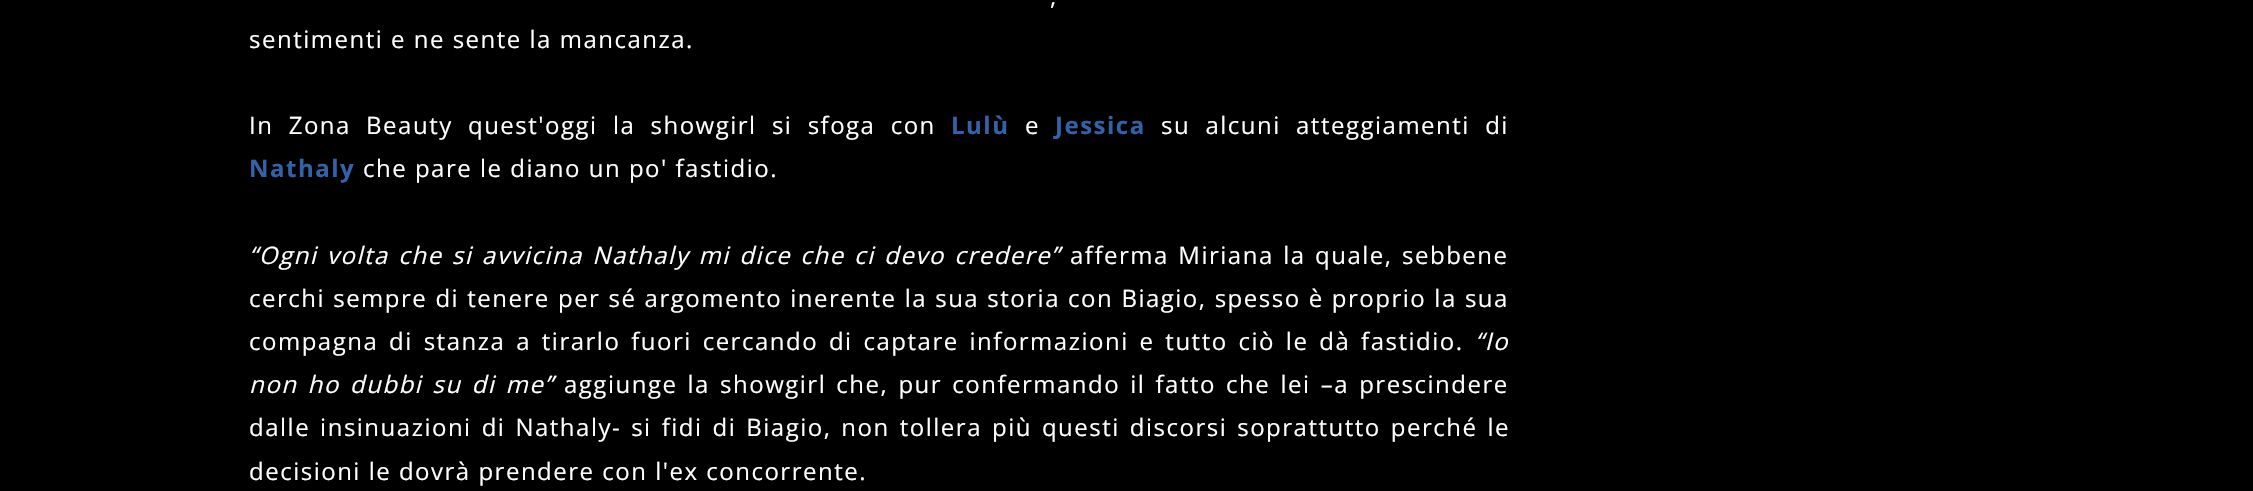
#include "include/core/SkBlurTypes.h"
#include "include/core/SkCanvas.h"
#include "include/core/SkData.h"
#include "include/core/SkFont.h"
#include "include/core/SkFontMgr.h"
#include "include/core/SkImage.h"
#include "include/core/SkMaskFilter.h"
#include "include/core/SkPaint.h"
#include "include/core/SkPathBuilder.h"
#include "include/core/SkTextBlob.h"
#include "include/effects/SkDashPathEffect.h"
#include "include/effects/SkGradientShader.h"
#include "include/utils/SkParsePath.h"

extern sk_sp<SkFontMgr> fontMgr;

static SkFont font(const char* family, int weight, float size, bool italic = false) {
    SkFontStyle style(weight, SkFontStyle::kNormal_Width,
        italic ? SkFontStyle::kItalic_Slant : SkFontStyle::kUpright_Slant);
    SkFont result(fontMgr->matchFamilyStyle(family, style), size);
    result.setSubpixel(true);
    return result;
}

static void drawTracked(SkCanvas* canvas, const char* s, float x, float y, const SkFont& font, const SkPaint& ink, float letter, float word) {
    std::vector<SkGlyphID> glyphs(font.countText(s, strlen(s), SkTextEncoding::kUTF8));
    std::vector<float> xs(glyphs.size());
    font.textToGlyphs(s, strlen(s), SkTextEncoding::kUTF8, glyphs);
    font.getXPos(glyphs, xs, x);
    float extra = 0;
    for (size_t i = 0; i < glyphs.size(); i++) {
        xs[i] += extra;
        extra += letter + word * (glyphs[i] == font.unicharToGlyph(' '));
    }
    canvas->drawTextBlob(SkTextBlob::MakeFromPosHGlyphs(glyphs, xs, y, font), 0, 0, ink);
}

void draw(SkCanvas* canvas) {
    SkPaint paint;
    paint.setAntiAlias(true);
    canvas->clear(0xFF000000);
    SkFont font1 = font("Open Sans", 400, 24);
    paint.setColor(0xFFFFFFFF);
    drawTracked(canvas, ",", 1050, 5, font1, paint, 1.5f, 7);
    drawTracked(canvas, "sentimenti e ne sente la mancanza.", 249, 48, font1, paint, 1.5f, 0);
    drawTracked(canvas, "In Zona Beauty quest'oggi la showgirl si sfoga con", 249, 134, font1, paint, 1.5f, 7.5f);
    SkFont font2 = font("Open Sans", 700, 24);
    paint.setColor(0xFF3362A8);
    drawTracked(canvas, "Lulù", 951, 134, font2, paint, 1.5f, 0);
    paint.setColor(0xFFFFFFFF);
    drawTracked(canvas, "e", 1025, 134, font1, paint, 1.5f, 0);
    paint.setColor(0xFF3362A8);
    drawTracked(canvas, "Jessica", 1055, 134, font2, paint, 1.5f, 0);
    paint.setColor(0xFFFFFFFF);
    drawTracked(canvas, "su alcuni atteggiamenti di", 1161, 134, font1, paint, 1.5f, 7.5f);
    paint.setColor(0xFF3362A8);
    drawTracked(canvas, "Nathaly", 249, 177, font2, paint, 1.5f, 0);
    paint.setColor(0xFFFFFFFF);
    drawTracked(canvas, "che pare le diano un po' fastidio.", 363, 177, font1, paint, 1.5f, 0);
    SkFont font3 = font("Open Sans", 400, 24, true);
    drawTracked(canvas, "“Ogni volta che si avvicina Nathaly mi dice che ci devo credere”", 249, 264, font3, paint, 1.5f, 1.75f);
    drawTracked(canvas, "afferma Miriana la quale, sebbene", 1070, 264, font1, paint, 1.5f, 1.75f);
    drawTracked(canvas, "cerchi sempre di tenere per sé argomento inerente la sua storia con Biagio, spesso è proprio la sua", 249, 307, font1, paint, 1.5f, 0.4f);
    drawTracked(canvas, "compagna di stanza a tirarlo fuori cercando di captare informazioni e tutto ciò le dà fastidio.", 249, 350, font1, paint, 1.5f, 3.1f);
    drawTracked(canvas, "“Io", 1475, 350, font3, paint, 1.5f, 0);
    drawTracked(canvas, "non ho dubbi su di me”", 249, 393, font3, paint, 1.5f, 2.4f);
    drawTracked(canvas, "aggiunge la showgirl che, pur confermando il fatto che lei –a prescindere", 564, 393, font1, paint, 1.5f, 2.4f);
    drawTracked(canvas, "dalle insinuazioni di Nathaly- si fidi di Biagio, non tollera più questi discorsi soprattutto perché le", 249, 436, font1, paint, 1.5f, 2.25f);
    drawTracked(canvas, "decisioni le dovrà prendere con l'ex concorrente.", 249, 480, font1, paint, 1.5f, 0);
}
